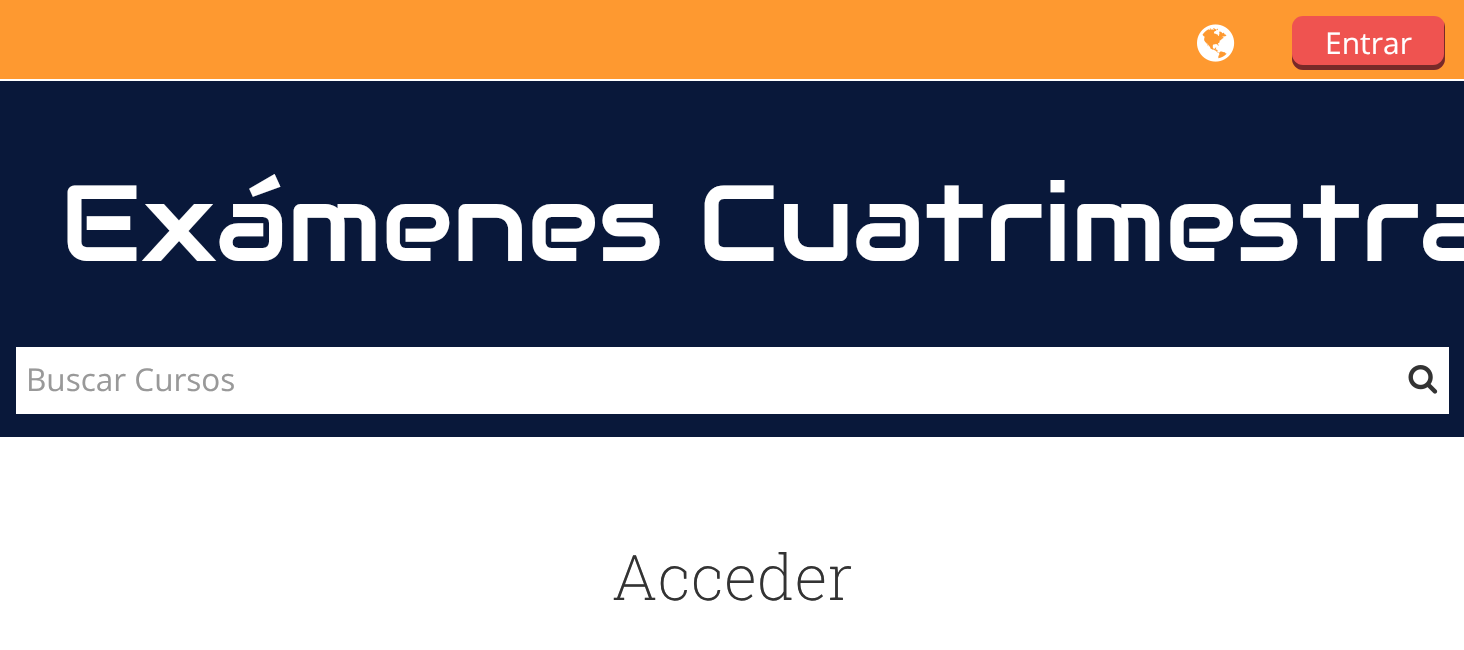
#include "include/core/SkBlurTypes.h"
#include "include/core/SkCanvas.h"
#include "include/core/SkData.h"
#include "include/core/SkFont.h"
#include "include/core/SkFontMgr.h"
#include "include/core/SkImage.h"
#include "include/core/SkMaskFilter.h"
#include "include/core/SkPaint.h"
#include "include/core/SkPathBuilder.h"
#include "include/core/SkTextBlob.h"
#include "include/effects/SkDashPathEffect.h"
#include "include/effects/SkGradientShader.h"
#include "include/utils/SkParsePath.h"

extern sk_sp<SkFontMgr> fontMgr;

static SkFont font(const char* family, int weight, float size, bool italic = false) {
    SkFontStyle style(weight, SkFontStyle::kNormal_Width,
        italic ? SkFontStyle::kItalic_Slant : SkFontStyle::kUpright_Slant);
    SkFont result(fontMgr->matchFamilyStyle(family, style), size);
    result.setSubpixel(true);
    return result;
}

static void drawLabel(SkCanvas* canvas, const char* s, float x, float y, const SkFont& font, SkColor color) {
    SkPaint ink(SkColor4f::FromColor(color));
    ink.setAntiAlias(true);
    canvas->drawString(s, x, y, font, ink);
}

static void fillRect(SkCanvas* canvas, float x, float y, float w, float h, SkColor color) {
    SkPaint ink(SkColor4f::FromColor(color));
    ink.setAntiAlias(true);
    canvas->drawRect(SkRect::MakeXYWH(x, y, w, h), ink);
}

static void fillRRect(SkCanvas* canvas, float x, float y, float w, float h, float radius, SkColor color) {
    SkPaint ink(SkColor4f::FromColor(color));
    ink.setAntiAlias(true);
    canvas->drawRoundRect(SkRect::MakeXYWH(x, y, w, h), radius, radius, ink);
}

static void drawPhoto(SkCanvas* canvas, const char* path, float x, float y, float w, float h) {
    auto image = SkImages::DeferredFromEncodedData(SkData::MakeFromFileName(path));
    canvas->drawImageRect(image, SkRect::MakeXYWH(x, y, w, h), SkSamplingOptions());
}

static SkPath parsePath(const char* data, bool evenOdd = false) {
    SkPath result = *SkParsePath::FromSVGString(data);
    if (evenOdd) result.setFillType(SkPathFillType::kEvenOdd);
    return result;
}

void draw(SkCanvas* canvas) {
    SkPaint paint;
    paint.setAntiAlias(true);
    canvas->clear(0xFFFFFFFF);
    fillRect(canvas, 0, 81, 1464, 356, 0xFF09183A);
    fillRect(canvas, 0, 0, 1464, 79, 0xFFFE9930);
    drawPhoto(canvas, "assets/img1.png", 1197, 24, 38, 38);
    fillRRect(canvas, 1292, 16, 153, 54, 11, 0xFFEF5350);
    paint.setColor(0x80000000);
    canvas->drawPath(parsePath("M1292 54V59C1292 65 1297 70 1303 70H1434C1440 70 1445 65 1445 59V27L1444 22V54C1444 60 1439 65 1433 65H1303C1297 65 1292 60 1292 54Z"), paint);
    SkFont font1 = font("Open Sans", 400, 30);
    drawLabel(canvas, "Entrar", 1325, 54, font1, 0xFFFFFFFF);
    SkFont font2 = font("Audiowide", 400, 108);
    drawLabel(canvas, "Exámenes Cuatrimestra", 60, 261, font2, 0xFFFFFFFF);
    fillRect(canvas, 16, 347, 1433, 67, 0xFFFFFFFF);
    SkFont font3 = font("Open Sans", 400, 31.5f);
    drawLabel(canvas, "Buscar Cursos", 26, 391, font3, 0xFF999999);
    drawPhoto(canvas, "assets/img2.png", 1408, 365, 30, 29);
    SkFont font4 = font("Roboto Slab", 200, 63);
    drawLabel(canvas, "Acceder", 612, 600, font4, 0xFF333333);
}
